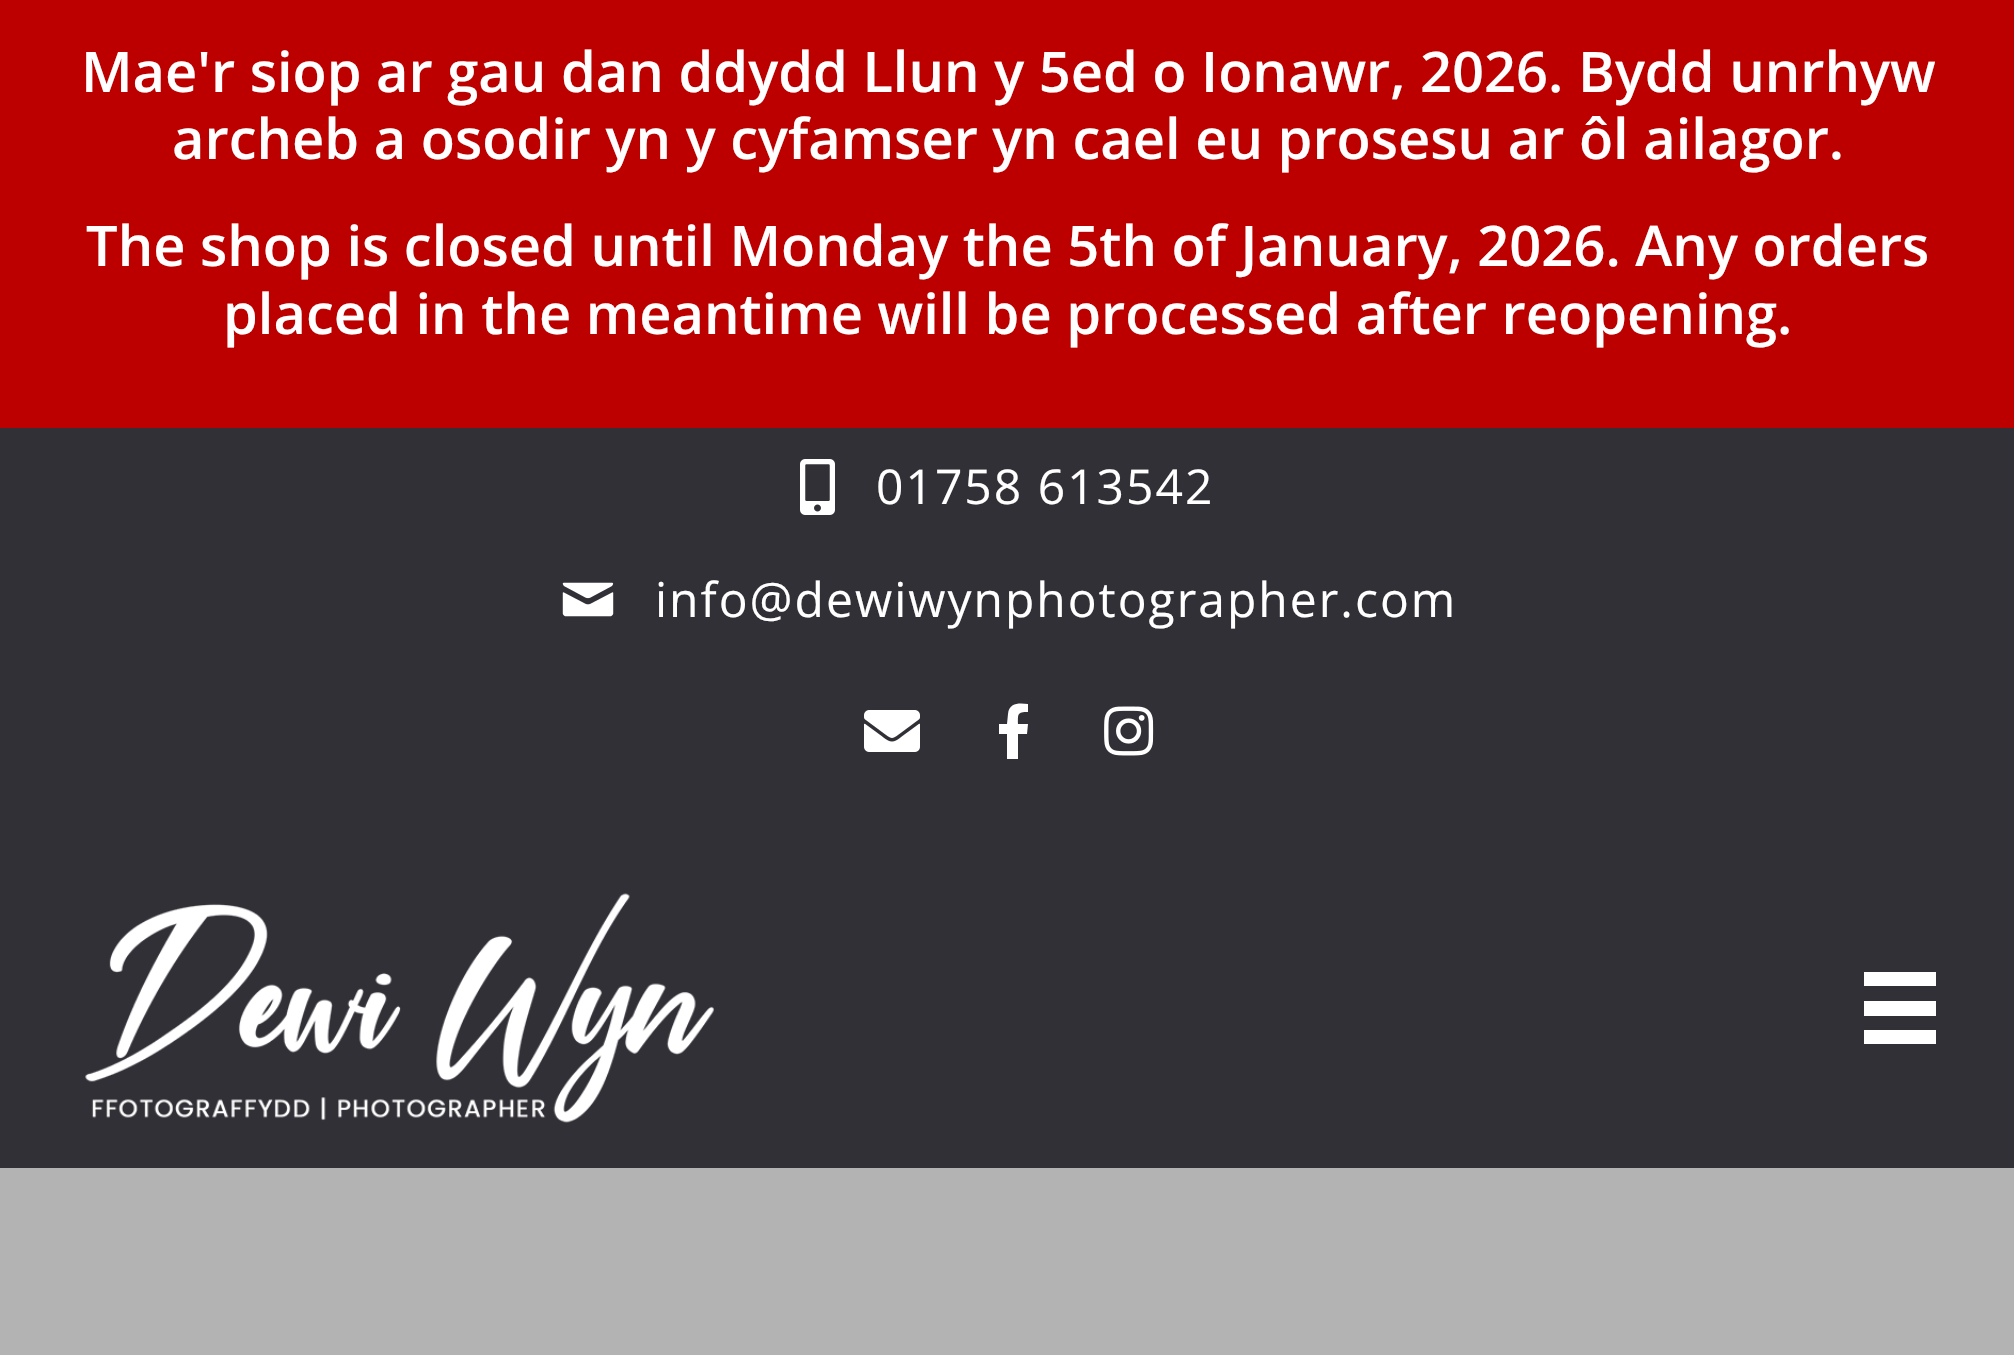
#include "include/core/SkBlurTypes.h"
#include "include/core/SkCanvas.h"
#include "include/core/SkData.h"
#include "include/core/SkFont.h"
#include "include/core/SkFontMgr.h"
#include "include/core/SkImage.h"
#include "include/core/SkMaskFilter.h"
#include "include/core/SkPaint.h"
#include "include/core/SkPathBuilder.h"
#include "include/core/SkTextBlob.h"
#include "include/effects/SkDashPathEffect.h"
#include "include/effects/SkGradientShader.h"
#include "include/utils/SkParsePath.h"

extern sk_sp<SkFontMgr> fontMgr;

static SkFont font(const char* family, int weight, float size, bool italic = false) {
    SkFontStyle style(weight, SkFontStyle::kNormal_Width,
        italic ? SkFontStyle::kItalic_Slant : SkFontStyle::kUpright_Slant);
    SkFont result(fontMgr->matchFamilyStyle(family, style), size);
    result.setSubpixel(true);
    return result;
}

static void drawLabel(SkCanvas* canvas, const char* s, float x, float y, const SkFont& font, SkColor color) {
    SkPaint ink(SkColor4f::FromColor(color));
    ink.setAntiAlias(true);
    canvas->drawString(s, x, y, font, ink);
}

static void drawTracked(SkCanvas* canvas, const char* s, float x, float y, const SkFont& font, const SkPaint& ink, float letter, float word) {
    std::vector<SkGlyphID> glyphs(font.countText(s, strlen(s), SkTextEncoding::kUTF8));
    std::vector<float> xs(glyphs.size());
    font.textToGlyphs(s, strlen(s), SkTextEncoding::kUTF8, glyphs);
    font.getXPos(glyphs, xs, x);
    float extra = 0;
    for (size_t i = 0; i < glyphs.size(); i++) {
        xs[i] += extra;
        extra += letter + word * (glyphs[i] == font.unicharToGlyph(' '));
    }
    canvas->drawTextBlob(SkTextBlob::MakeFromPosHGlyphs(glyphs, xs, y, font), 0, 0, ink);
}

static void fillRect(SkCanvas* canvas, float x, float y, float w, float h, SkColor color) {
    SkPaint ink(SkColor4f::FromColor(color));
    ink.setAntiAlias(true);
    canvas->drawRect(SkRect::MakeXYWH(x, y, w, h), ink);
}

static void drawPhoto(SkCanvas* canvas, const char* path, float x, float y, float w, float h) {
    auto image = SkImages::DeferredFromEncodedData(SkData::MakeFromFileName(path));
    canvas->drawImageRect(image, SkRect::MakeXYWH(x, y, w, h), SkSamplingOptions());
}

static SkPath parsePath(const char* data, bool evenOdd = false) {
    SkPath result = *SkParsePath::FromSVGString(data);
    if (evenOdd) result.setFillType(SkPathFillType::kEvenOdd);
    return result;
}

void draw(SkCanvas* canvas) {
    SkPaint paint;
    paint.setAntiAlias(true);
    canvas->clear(0xFFB3B3B3);
    fillRect(canvas, 0, 0, 2014, 428, 0xFFBC0000);
    SkFont font1 = font("Open Sans", 600, 56);
    drawLabel(canvas, "Mae'r siop ar gau dan ddydd Llun y 5ed o Ionawr, 2026. Bydd unrhyw", 81, 92, font1, 0xFFFFFFFF);
    drawLabel(canvas, "archeb a osodir yn y cyfamser yn cael eu prosesu ar ôl ailagor.", 172, 159, font1, 0xFFFFFFFF);
    drawLabel(canvas, "The shop is closed until Monday the 5th of January, 2026. Any orders", 86, 266, font1, 0xFFFFFFFF);
    drawLabel(canvas, "placed in the meantime will be processed after reopening.", 223, 334, font1, 0xFFFFFFFF);
    fillRect(canvas, 0, 428, 2014, 740, 0xFF303036);
    drawPhoto(canvas, "assets/img1.png", 800, 459, 35, 56);
    SkFont font2 = font("Open Sans", 400, 48);
    paint.setColor(0xFFFFFFFF);
    drawTracked(canvas, "01758 613542", 876, 504, font2, paint, 2, 0);
    drawPhoto(canvas, "assets/img2.png", 562, 582, 52, 35);
    drawTracked(canvas, "info@dewiwynphotographer.com", 655, 617, font2, paint, 2, 0);
    drawPhoto(canvas, "assets/img3.png", 864, 710, 56, 42);
    canvas->drawPath(parsePath("M1027 734H1018V759H1007V734H999V724H1007L1008 714C1009 702 1020 703 1028 704V712C1017 712 1018 714 1018 724H1028Z"), paint);
    drawPhoto(canvas, "assets/img4.png", 1104, 706, 50, 50);
    drawPhoto(canvas, "assets/img5.png", 85, 893, 629, 230);
    fillRect(canvas, 1864, 972, 72, 14, 0xFFFFFFFF);
    fillRect(canvas, 1864, 1001, 72, 15, 0xFFFFFFFF);
    fillRect(canvas, 1864, 1030, 72, 14, 0xFFFFFFFF);
}
